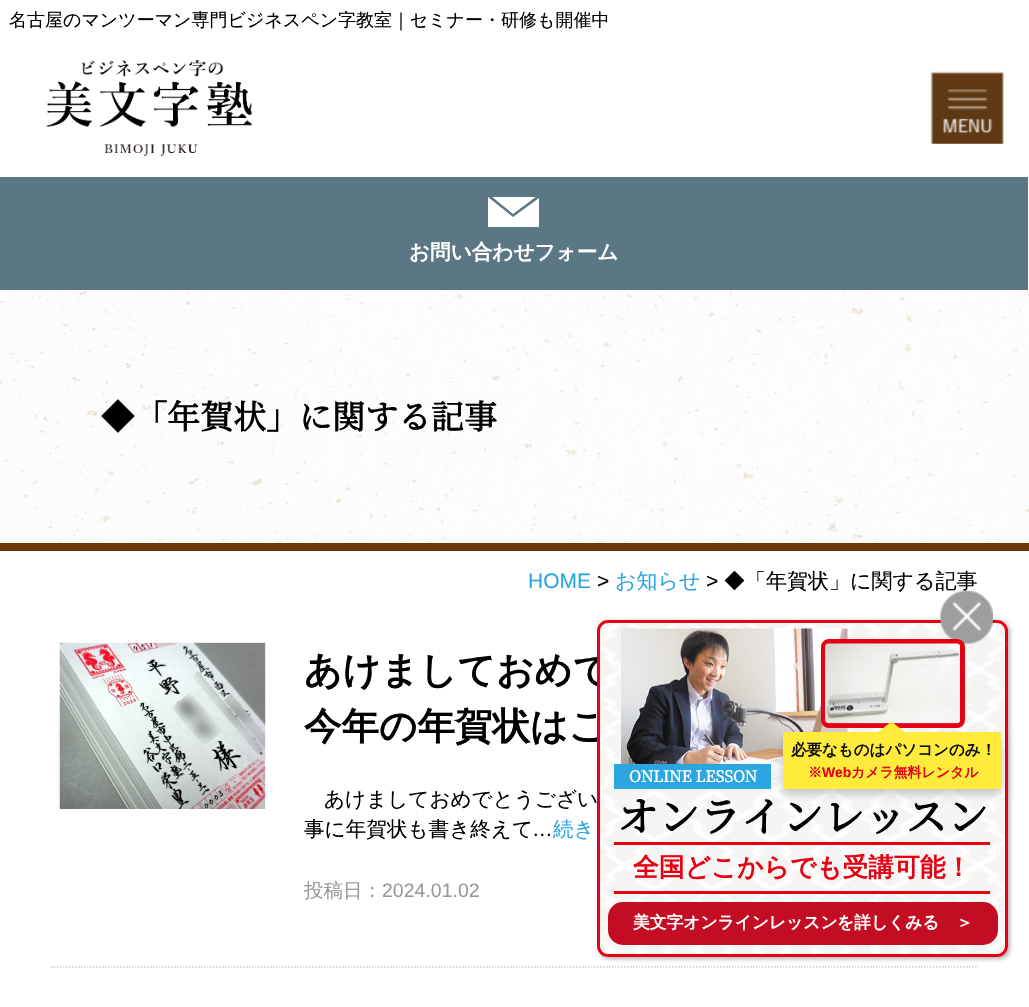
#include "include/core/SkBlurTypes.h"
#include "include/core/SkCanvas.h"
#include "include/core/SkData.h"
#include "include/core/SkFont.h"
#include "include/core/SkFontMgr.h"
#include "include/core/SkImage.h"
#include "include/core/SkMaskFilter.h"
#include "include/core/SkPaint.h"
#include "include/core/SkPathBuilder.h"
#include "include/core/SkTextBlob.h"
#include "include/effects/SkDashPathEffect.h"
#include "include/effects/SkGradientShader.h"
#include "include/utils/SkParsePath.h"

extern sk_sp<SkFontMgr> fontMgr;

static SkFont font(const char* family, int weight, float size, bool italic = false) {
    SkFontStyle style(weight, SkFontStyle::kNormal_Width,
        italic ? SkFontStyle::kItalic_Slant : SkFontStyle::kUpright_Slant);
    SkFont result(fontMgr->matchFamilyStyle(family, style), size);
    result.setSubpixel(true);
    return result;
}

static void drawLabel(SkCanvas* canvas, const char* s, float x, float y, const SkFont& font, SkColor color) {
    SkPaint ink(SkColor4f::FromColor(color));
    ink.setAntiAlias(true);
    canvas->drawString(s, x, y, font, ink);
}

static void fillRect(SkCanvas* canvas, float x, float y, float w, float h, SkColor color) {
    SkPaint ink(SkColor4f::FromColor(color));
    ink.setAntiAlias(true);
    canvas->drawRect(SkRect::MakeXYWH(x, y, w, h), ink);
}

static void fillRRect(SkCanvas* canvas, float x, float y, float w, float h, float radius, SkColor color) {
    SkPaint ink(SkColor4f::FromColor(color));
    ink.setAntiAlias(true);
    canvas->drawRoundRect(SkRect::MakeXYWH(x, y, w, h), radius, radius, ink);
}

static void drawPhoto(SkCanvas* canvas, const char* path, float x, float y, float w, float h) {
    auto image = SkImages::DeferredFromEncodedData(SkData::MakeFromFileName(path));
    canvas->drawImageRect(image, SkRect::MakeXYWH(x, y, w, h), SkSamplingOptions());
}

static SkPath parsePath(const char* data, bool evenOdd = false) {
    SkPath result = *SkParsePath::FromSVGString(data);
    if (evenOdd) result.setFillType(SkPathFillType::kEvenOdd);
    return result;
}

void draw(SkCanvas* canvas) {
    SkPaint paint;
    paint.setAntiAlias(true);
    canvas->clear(0xFFFFFFFF);
    SkFont font1 = font("WenQuanYi Zen Hei", 500, 18);
    drawLabel(canvas, "名古屋のマンツーマン専門ビジネスペン字教室｜セミナー・研修も開催中", 9, 26, font1, 0xFF000000);
    drawPhoto(canvas, "assets/img1.png", 46, 60, 207, 96);
    drawPhoto(canvas, "assets/img2.png", 931, 71, 73, 73);
    fillRect(canvas, 0, 177, 1028, 113, 0xFF5C7784);
    paint.setColor(0xFFFFFFFF);
    canvas->drawPath(parsePath("M513 217L488 197V227H539V198Z"), paint);
    canvas->save();
    canvas->clipRect(SkRect::MakeXYWH(488, 197, 52, 31));
    canvas->drawPath(parsePath("M537 196H491L513 214Z"), paint);
    canvas->restore();
    SkFont font2 = font("WenQuanYi Zen Hei", 700, 20.6f);
    drawLabel(canvas, "お問い合わせフォーム", 409, 259, font2, 0xFFFFFFFF);
    drawPhoto(canvas, "assets/img3.png", 0, 290, 1029, 253);
    fillRect(canvas, 0, 543, 1029, 8, 0xFF6A3906);
    SkFont font3 = font("Noto Serif JP", 700, 33);
    drawLabel(canvas, "◆「年賀状」に関する記事", 101, 429, font3, 0xFF000000);
    SkFont font4 = font("Liberation Sans", 400, 21);
    drawLabel(canvas, "HOME", 528, 588, font4, 0xFF2CA6E0);
    drawLabel(canvas, ">", 597, 588, font4, 0xFF000000);
    SkFont font5 = font("WenQuanYi Zen Hei", 500, 21);
    drawLabel(canvas, "お知らせ", 615, 588, font5, 0xFF2CA6E0);
    drawLabel(canvas, ">", 706, 588, font4, 0xFF000000);
    drawLabel(canvas, "◆「年賀状」に関する記事", 724, 588, font5, 0xFF000000);
    drawPhoto(canvas, "assets/img4.png", 59, 642, 207, 167);
    SkFont font6 = font("WenQuanYi Zen Hei", 700, 37.5f);
    drawLabel(canvas, "あけましておめで", 304, 683, font6, 0xFF000000);
    drawLabel(canvas, "今年の年賀状はこ", 304, 739, font6, 0xFF000000);
    SkFont font7 = font("WenQuanYi Zen Hei", 500, 20.6f);
    drawLabel(canvas, "あけましておめでとうござい", 324, 806, font7, 0xFF000000);
    drawLabel(canvas, "事に年賀状も書き終えて", 304, 836, font7, 0xFF000000);
    SkFont font8 = font("Liberation Sans", 400, 20.6f);
    drawLabel(canvas, "…", 532, 836, font8, 0xFF000000);
    drawLabel(canvas, "続き", 553, 836, font7, 0xFF2CA6E0);
    SkFont font9 = font("WenQuanYi Zen Hei", 500, 19.5f);
    drawLabel(canvas, "投稿日：", 304, 897, font9, 0xFF999999);
    SkFont font10 = font("Liberation Sans", 400, 19.5f);
    drawLabel(canvas, "2024.01.02", 382, 897, font10, 0xFF999999);
    paint.setStroke(true);
    paint.setStrokeWidth(1.5f);
    paint.setColor(0xFFCCCCCC);
    paint.setPathEffect(SkDashPathEffect::Make({{1.5f, 1.5f}}, 0));
    canvas->drawPath(parsePath("M51 967H978"), paint);
    paint.setPathEffect(nullptr);
    paint.setStroke(false);
    paint.setColor(0x4D000000);
    paint.setMaskFilter(SkMaskFilter::MakeBlur(kNormal_SkBlurStyle, 2));
    canvas->drawRoundRect(SkRect::MakeXYWH(599, 621, 411, 338), 11, 11, paint);
    paint.setMaskFilter(nullptr);
    drawPhoto(canvas, "assets/img5.png", 597, 620, 411, 337);
    paint.setStroke(true);
    paint.setStrokeWidth(3);
    paint.setColor(0xFFE50012);
    canvas->drawRoundRect(SkRect::MakeXYWH(598.5f, 621.5f, 408, 334), 9.5f, 9.5f, paint);
    drawPhoto(canvas, "assets/img6.png", 940, 589, 53, 55);
    drawPhoto(canvas, "assets/img7.png", 621, 628, 227, 152);
    paint.setStrokeWidth(5);
    canvas->drawRoundRect(SkRect::MakeXYWH(823.5f, 641.5f, 139, 84), 5.5f, 5.5f, paint);
    drawPhoto(canvas, "assets/img8.png", 825, 643, 135, 81);
    fillRect(canvas, 614, 764, 157, 25, 0xFF2CA6E0);
    paint.setStroke(false);
    paint.setColor(0x33000000);
    paint.setMaskFilter(SkMaskFilter::MakeBlur(kNormal_SkBlurStyle, 4));
    canvas->drawRoundRect(SkRect::MakeXYWH(783, 737, 218, 57), 3, 3, paint);
    paint.setMaskFilter(nullptr);
    fillRRect(canvas, 783, 732, 218, 57, 3, 0xFFFFEB3B);
    paint.setColor(0xFFFFEB3B);
    canvas->drawPath(parsePath("M906.5 733.5H876.5L891.5 721.5Z"), paint);
    SkFont font11 = font("WenQuanYi Zen Hei", 700, 15.5f);
    drawLabel(canvas, "必要なものはパソコンのみ！", 791, 755, font11, 0xFF111111);
    SkFont font12 = font("WenQuanYi Zen Hei", 700, 13.9f);
    drawLabel(canvas, "※", 808, 777, font12, 0xFFE50012);
    SkFont font13 = font("Liberation Sans", 700, 13.9f);
    drawLabel(canvas, "Web", 822, 777, font13, 0xFFE50012);
    drawLabel(canvas, "カメラ無料レンタル", 851, 777, font12, 0xFFE50012);
    SkFont font14 = font("Noto Serif JP", 700, 15.5f);
    drawLabel(canvas, "ONLINE LESSON", 629, 782, font14, 0xFFFFFFFF);
    SkFont font15 = font("Noto Serif JP", 700, 41.25f);
    drawLabel(canvas, "オンラインレッスン", 617, 832, font15, 0xFF000000);
    fillRect(canvas, 614, 842, 376, 3, 0xFFE50012);
    fillRect(canvas, 614, 891, 376, 3, 0xFFE50012);
    SkFont font16 = font("WenQuanYi Zen Hei", 700, 25.75f);
    drawLabel(canvas, "全国どこからでも受講可能！", 633, 876, font16, 0xFFE50012);
    fillRRect(canvas, 608, 902, 390, 43, 15, 0xFFC30D23);
    SkFont font17 = font("WenQuanYi Zen Hei", 700, 16.75f);
    drawLabel(canvas, "美文字オンラインレッスン", 633, 928, font17, 0xFFFFFFFF);
    drawLabel(canvas, "を詳しくみる　＞", 837, 928, font17, 0xFFFFFFFF);
}
